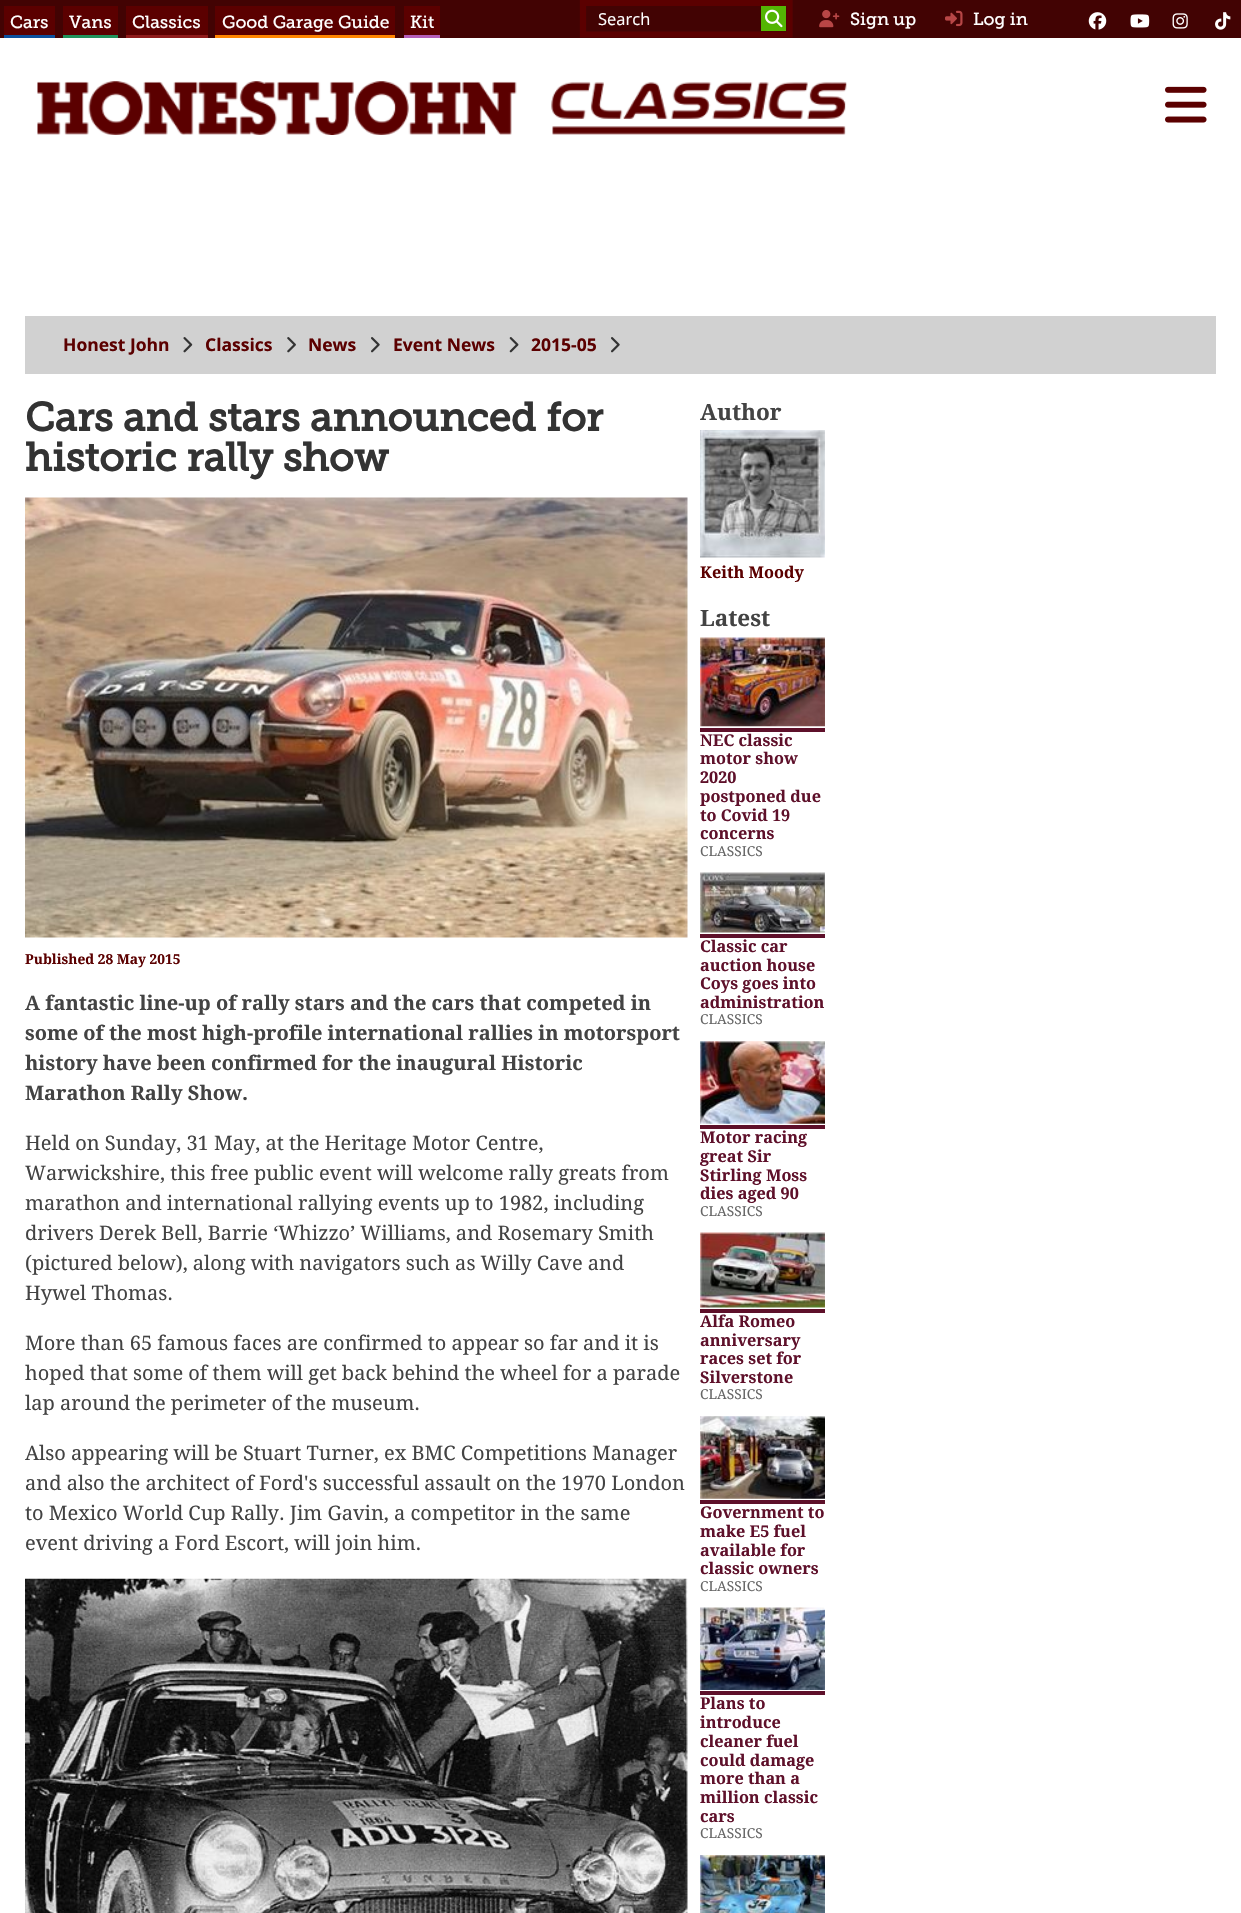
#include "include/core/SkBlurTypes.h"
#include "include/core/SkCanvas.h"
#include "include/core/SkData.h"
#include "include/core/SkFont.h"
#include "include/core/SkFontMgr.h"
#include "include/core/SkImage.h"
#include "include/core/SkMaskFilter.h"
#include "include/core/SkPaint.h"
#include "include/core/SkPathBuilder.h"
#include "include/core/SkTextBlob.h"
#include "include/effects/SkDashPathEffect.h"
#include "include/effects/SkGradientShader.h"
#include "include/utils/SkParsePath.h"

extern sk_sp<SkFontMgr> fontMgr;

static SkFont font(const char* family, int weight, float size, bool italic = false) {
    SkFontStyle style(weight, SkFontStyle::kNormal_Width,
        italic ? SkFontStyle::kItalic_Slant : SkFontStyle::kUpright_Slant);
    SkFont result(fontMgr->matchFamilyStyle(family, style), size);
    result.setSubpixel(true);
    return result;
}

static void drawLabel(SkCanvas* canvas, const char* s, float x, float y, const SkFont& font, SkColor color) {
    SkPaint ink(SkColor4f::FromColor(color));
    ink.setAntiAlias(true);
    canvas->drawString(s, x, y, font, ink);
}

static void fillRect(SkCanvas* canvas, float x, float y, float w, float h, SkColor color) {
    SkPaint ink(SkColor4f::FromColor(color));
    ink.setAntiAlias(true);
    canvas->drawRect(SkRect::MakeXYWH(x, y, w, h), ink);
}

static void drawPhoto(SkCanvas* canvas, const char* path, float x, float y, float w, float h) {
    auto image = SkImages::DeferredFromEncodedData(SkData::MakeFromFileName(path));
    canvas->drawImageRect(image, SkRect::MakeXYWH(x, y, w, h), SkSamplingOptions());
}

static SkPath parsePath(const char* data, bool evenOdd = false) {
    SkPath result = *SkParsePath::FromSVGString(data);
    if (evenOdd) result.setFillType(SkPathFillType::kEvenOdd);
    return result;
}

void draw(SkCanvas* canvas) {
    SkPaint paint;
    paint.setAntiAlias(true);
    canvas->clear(0xFF420303);
    fillRect(canvas, 4, 6, 51, 29, 0xFF5B0000);
    fillRect(canvas, 4, 35, 51, 3, 0xFF0B509E);
    SkFont font1 = font("Museo Slab", 400, 17.5f);
    drawLabel(canvas, "Cars", 10, 28, font1, 0xFFFFFFFF);
    fillRect(canvas, 63, 6, 55, 29, 0xFF5B0000);
    fillRect(canvas, 63, 35, 55, 3, 0xFF20935C);
    drawLabel(canvas, "Vans", 69, 28, font1, 0xFFFFFFFF);
    fillRect(canvas, 126, 6, 82, 29, 0xFF5B0000);
    fillRect(canvas, 126, 35, 82, 3, 0xFF8F1B1B);
    drawLabel(canvas, "Classics", 132, 28, font1, 0xFFFFFFFF);
    fillRect(canvas, 215, 6, 180, 29, 0xFF5B0000);
    fillRect(canvas, 215, 35, 180, 3, 0xFFFF8500);
    drawLabel(canvas, "Good Garage Guide", 222, 28, font1, 0xFFFFFFFF);
    fillRect(canvas, 404, 6, 36, 29, 0xFF5B0000);
    fillRect(canvas, 404, 35, 36, 3, 0xFFB45EB8);
    drawLabel(canvas, "Kit", 410, 28, font1, 0xFFFFFFFF);
    paint.setStroke(true);
    paint.setStrokeWidth(6.2f);
    paint.setColor(0xFF5B0000);
    canvas->drawPath(parsePath("M583 3H789.5V34.5H583Z"), paint);
    SkFont font2 = font("Open Sans", 400, 16.5f);
    drawLabel(canvas, "Search", 598, 25, font2, 0xFFFFFFFF);
    fillRect(canvas, 761, 6, 25, 25, 0xFF54B504);
    drawPhoto(canvas, "assets/img1.png", 765, 9, 18, 19);
    drawPhoto(canvas, "assets/img2.png", 819, 10, 21, 18);
    drawLabel(canvas, "Sign up", 850, 25, font1, 0xFFFFFFFF);
    drawPhoto(canvas, "assets/img3.png", 945, 10, 18, 17);
    drawLabel(canvas, "Log in", 973, 25, font1, 0xFFFFFFFF);
    drawPhoto(canvas, "assets/img4.png", 1088, 12, 19, 18);
    drawPhoto(canvas, "assets/img5.png", 1130, 14, 20, 14);
    drawPhoto(canvas, "assets/img6.png", 1172, 13, 16, 16);
    drawPhoto(canvas, "assets/img7.png", 1215, 12, 16, 18);
    fillRect(canvas, 0, 38, 1241, 1875, 0xFFFFFFFF);
    drawPhoto(canvas, "assets/img8.png", 37, 81, 810, 54);
    drawPhoto(canvas, "assets/img9.png", 1165, 86, 42, 37);
    fillRect(canvas, 25, 316, 1191, 58, 0xFFD1D1D1);
    SkFont font3 = font("Open Sans", 700, 17.5f);
    drawLabel(canvas, "Honest John", 63, 351, font3, 0xFF5B0000);
    drawPhoto(canvas, "assets/img10.png", 183, 337, 10, 16);
    drawLabel(canvas, "Classics", 205, 351, font3, 0xFF5B0000);
    drawPhoto(canvas, "assets/img11.png", 287, 337, 9, 16);
    drawLabel(canvas, "News", 308, 351, font3, 0xFF5B0000);
    drawPhoto(canvas, "assets/img12.png", 371, 337, 9, 16);
    drawLabel(canvas, "Event News", 393, 351, font3, 0xFF5B0000);
    drawPhoto(canvas, "assets/img13.png", 509, 337, 10, 16);
    drawLabel(canvas, "2015-05", 531, 351, font3, 0xFF5B0000);
    drawPhoto(canvas, "assets/img12.png", 611, 337, 9, 16);
    SkFont font4 = font("Museo Slab", 700, 40);
    drawLabel(canvas, "Cars and stars announced for", 25, 431, font4, 0xFF333333);
    drawLabel(canvas, "historic rally show", 25, 471, font4, 0xFF333333);
    drawPhoto(canvas, "assets/img14.png", 25, 497, 663, 441);
    SkFont font5 = font("Droid Serif", 700, 13.75f);
    drawLabel(canvas, "Published 28 May 2015", 25, 964, font5, 0xFF5B0000);
    SkFont font6 = font("Droid Serif", 700, 20);
    drawLabel(canvas, "A fantastic line-up of rally stars and the cars that competed in", 25, 1010, font6, 0xFF434343);
    drawLabel(canvas, "some of the most high-profile international rallies in motorsport", 25, 1040, font6, 0xFF434343);
    drawLabel(canvas, "history have been confirmed for the inaugural Historic", 25, 1070, font6, 0xFF434343);
    drawLabel(canvas, "Marathon Rally Show.", 25, 1100, font6, 0xFF434343);
    SkFont font7 = font("Droid Serif", 400, 20);
    drawLabel(canvas, "Held on Sunday, 31 May, at the Heritage Motor Centre,", 25, 1150, font7, 0xFF434343);
    drawLabel(canvas, "Warwickshire, this free public event will welcome rally greats from", 25, 1180, font7, 0xFF434343);
    drawLabel(canvas, "marathon and international rallying events up to 1982, including", 25, 1210, font7, 0xFF434343);
    drawLabel(canvas, "drivers Derek Bell, Barrie ‘Whizzo’ Williams, and Rosemary Smith", 25, 1240, font7, 0xFF434343);
    drawLabel(canvas, "(pictured below), along with navigators such as Willy Cave and", 25, 1270, font7, 0xFF434343);
    drawLabel(canvas, "Hywel Thomas.", 25, 1300, font7, 0xFF434343);
    drawLabel(canvas, "More than 65 famous faces are confirmed to appear so far and it is", 25, 1350, font7, 0xFF434343);
    drawLabel(canvas, "hoped that some of them will get back behind the wheel for a parade", 25, 1380, font7, 0xFF434343);
    drawLabel(canvas, "lap around the perimeter of the museum.", 25, 1410, font7, 0xFF434343);
    drawLabel(canvas, "Also appearing will be Stuart Turner, ex BMC Competitions Manager", 25, 1460, font7, 0xFF434343);
    drawLabel(canvas, "and also the architect of Ford's successful assault on the 1970 London", 25, 1490, font7, 0xFF434343);
    drawLabel(canvas, "to Mexico World Cup Rally. Jim Gavin, a competitor in the same", 25, 1520, font7, 0xFF434343);
    drawLabel(canvas, "event driving a Ford Escort, will join him.", 25, 1550, font7, 0xFF434343);
    drawPhoto(canvas, "assets/img15.png", 25, 1578, 663, 335);
    SkFont font8 = font("Droid Serif", 700, 22.5f);
    drawLabel(canvas, "Author", 700, 420, font8, 0xFF434343);
    drawPhoto(canvas, "assets/img16.png", 700, 430, 125, 128);
    SkFont font9 = font("Droid Serif", 700, 16.25f);
    drawLabel(canvas, "Keith Moody", 700, 578, font9, 0xFF5B0000);
    drawLabel(canvas, "Latest", 700, 626, font8, 0xFF434343);
    drawPhoto(canvas, "assets/img17.png", 700, 637, 125, 90);
    drawLabel(canvas, "NEC classic", 700, 746, font9, 0xFF5E102A);
    fillRect(canvas, 700, 728, 125, 4, 0xFF5E102A);
    drawLabel(canvas, "motor show", 700, 764, font9, 0xFF5E102A);
    drawLabel(canvas, "2020", 700, 783, font9, 0xFF5E102A);
    drawLabel(canvas, "postponed due", 700, 802, font9, 0xFF5E102A);
    drawLabel(canvas, "to Covid 19", 700, 821, font9, 0xFF5E102A);
    drawLabel(canvas, "concerns", 700, 839, font9, 0xFF5E102A);
    SkFont font10 = font("Droid Serif", 400, 13.75f);
    drawLabel(canvas, "CLASSICS", 700, 856, font10, 0xFF666666);
    drawPhoto(canvas, "assets/img18.png", 700, 872, 125, 61);
    drawLabel(canvas, "Classic car", 700, 952, font9, 0xFF5E102A);
    fillRect(canvas, 700, 934, 125, 4, 0xFF5E102A);
    drawLabel(canvas, "auction house", 700, 971, font9, 0xFF5E102A);
    drawLabel(canvas, "Coys goes into", 700, 989, font9, 0xFF5E102A);
    drawLabel(canvas, "administration", 700, 1008, font9, 0xFF5E102A);
    drawLabel(canvas, "CLASSICS", 700, 1024, font10, 0xFF666666);
    drawPhoto(canvas, "assets/img19.png", 700, 1041, 125, 83);
    drawLabel(canvas, "Motor racing", 700, 1143, font9, 0xFF5E102A);
    fillRect(canvas, 700, 1125, 125, 4, 0xFF5E102A);
    drawLabel(canvas, "great Sir", 700, 1162, font9, 0xFF5E102A);
    drawLabel(canvas, "Stirling Moss", 700, 1181, font9, 0xFF5E102A);
    drawLabel(canvas, "dies aged 90", 700, 1199, font9, 0xFF5E102A);
    drawLabel(canvas, "CLASSICS", 700, 1216, font10, 0xFF666666);
    drawPhoto(canvas, "assets/img20.png", 700, 1232, 125, 76);
    drawLabel(canvas, "Alfa Romeo", 700, 1327, font9, 0xFF5E102A);
    fillRect(canvas, 700, 1309, 125, 4, 0xFF5E102A);
    drawLabel(canvas, "anniversary", 700, 1346, font9, 0xFF5E102A);
    drawLabel(canvas, "races set for", 700, 1364, font9, 0xFF5E102A);
    drawLabel(canvas, "Silverstone", 700, 1383, font9, 0xFF5E102A);
    drawLabel(canvas, "CLASSICS", 700, 1399, font10, 0xFF666666);
    drawPhoto(canvas, "assets/img21.png", 700, 1416, 125, 83);
    drawLabel(canvas, "Government to", 700, 1518, font9, 0xFF5E102A);
    fillRect(canvas, 700, 1500, 125, 4, 0xFF5E102A);
    drawLabel(canvas, "make E5 fuel", 700, 1537, font9, 0xFF5E102A);
    drawLabel(canvas, "available for", 700, 1556, font9, 0xFF5E102A);
    drawLabel(canvas, "classic owners", 700, 1574, font9, 0xFF5E102A);
    drawLabel(canvas, "CLASSICS", 700, 1591, font10, 0xFF666666);
    drawPhoto(canvas, "assets/img22.png", 700, 1607, 125, 83);
    drawLabel(canvas, "Plans to", 700, 1709, font9, 0xFF5E102A);
    fillRect(canvas, 700, 1691, 125, 4, 0xFF5E102A);
    drawLabel(canvas, "introduce", 700, 1728, font9, 0xFF5E102A);
    drawLabel(canvas, "cleaner fuel", 700, 1747, font9, 0xFF5E102A);
    drawLabel(canvas, "could damage", 700, 1766, font9, 0xFF5E102A);
    drawLabel(canvas, "more than a", 700, 1784, font9, 0xFF5E102A);
    drawLabel(canvas, "million classic", 700, 1803, font9, 0xFF5E102A);
    drawLabel(canvas, "cars", 700, 1822, font9, 0xFF5E102A);
    drawLabel(canvas, "CLASSICS", 700, 1838, font10, 0xFF666666);
    drawPhoto(canvas, "assets/img23.png", 700, 1855, 125, 58);
}
